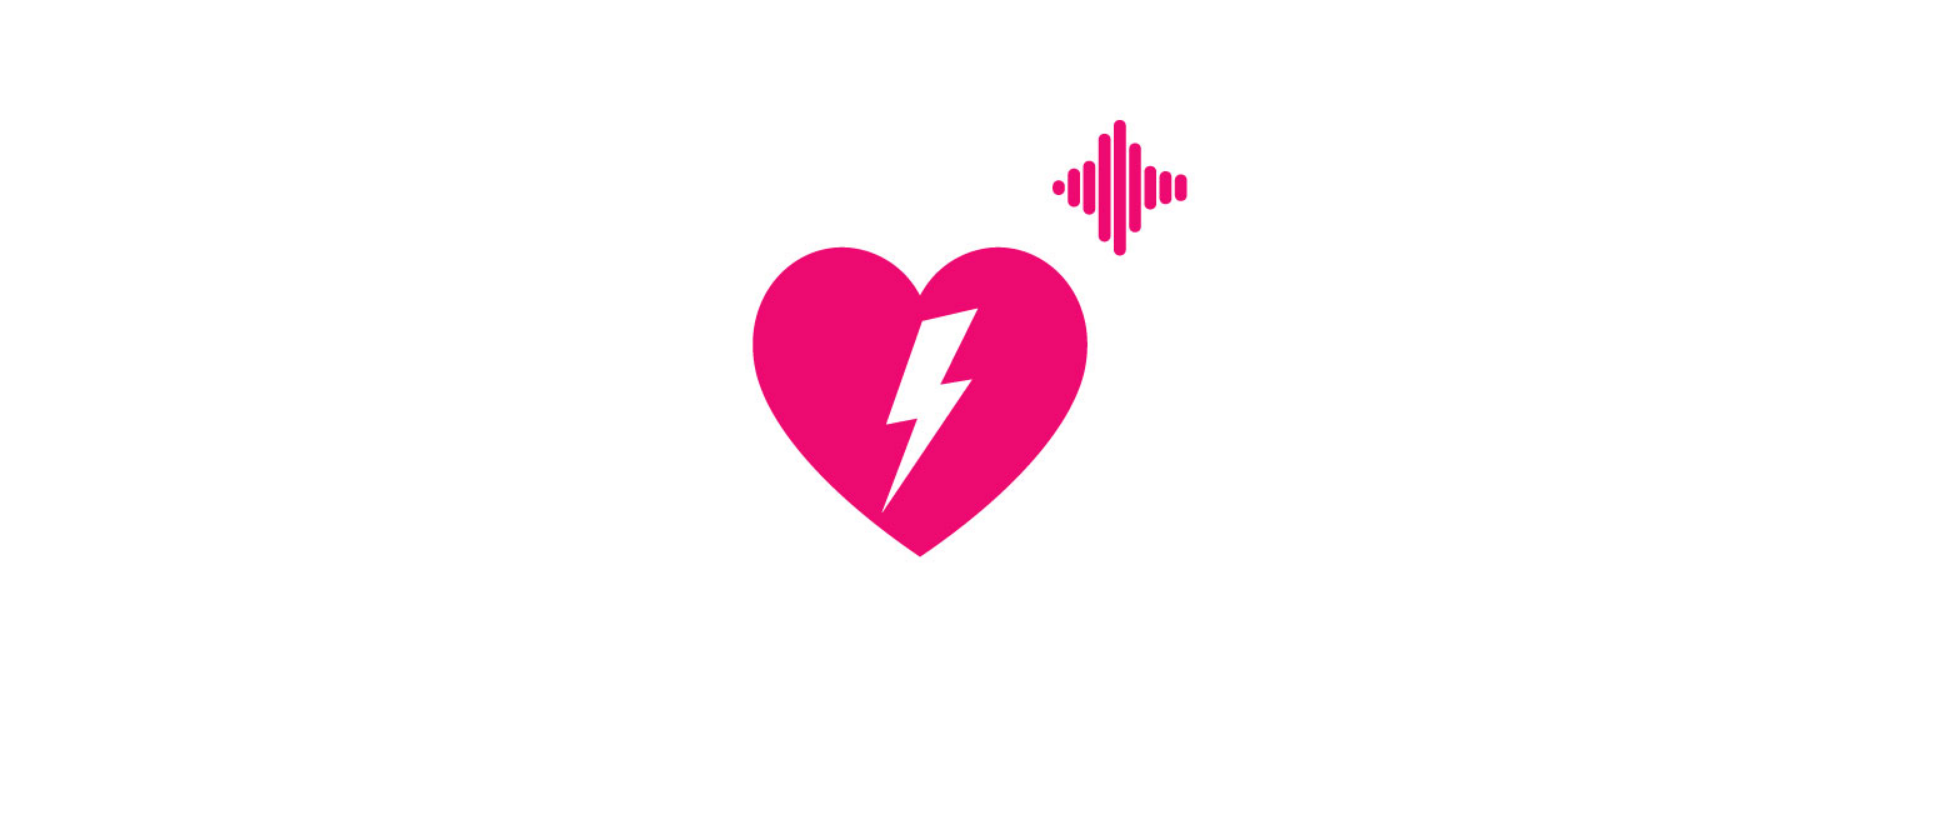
#include "include/core/SkBlurTypes.h"
#include "include/core/SkCanvas.h"
#include "include/core/SkData.h"
#include "include/core/SkFont.h"
#include "include/core/SkFontMgr.h"
#include "include/core/SkImage.h"
#include "include/core/SkMaskFilter.h"
#include "include/core/SkPaint.h"
#include "include/core/SkPathBuilder.h"
#include "include/core/SkTextBlob.h"
#include "include/effects/SkDashPathEffect.h"
#include "include/effects/SkGradientShader.h"
#include "include/utils/SkParsePath.h"

extern sk_sp<SkFontMgr> fontMgr;

static void drawPhoto(SkCanvas* canvas, const char* path, float x, float y, float w, float h) {
    auto image = SkImages::DeferredFromEncodedData(SkData::MakeFromFileName(path));
    canvas->drawImageRect(image, SkRect::MakeXYWH(x, y, w, h), SkSamplingOptions());
}

void draw(SkCanvas* canvas) {
    SkPaint paint;
    paint.setAntiAlias(true);
    canvas->clear(0xFFFFFFFF);
    drawPhoto(canvas, "assets/img1.png", 745, 112, 450, 451);
}
